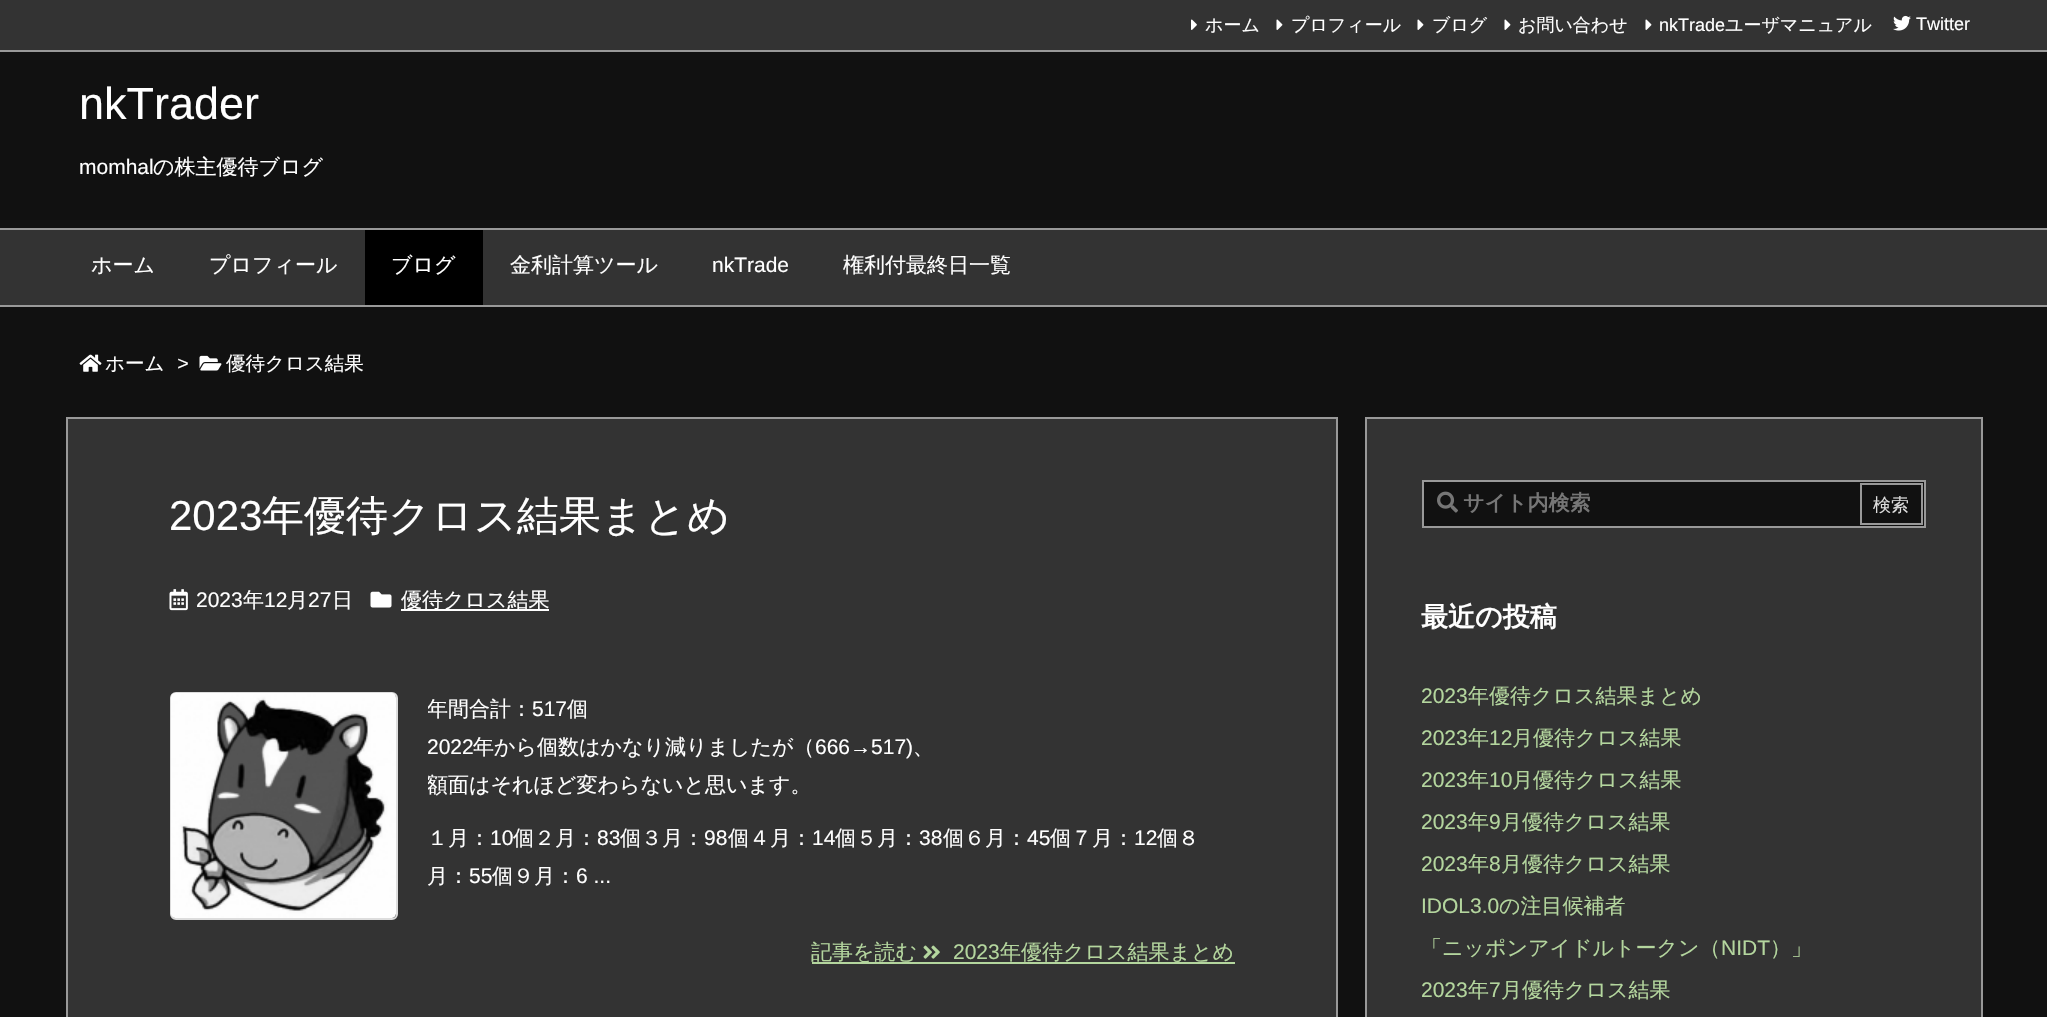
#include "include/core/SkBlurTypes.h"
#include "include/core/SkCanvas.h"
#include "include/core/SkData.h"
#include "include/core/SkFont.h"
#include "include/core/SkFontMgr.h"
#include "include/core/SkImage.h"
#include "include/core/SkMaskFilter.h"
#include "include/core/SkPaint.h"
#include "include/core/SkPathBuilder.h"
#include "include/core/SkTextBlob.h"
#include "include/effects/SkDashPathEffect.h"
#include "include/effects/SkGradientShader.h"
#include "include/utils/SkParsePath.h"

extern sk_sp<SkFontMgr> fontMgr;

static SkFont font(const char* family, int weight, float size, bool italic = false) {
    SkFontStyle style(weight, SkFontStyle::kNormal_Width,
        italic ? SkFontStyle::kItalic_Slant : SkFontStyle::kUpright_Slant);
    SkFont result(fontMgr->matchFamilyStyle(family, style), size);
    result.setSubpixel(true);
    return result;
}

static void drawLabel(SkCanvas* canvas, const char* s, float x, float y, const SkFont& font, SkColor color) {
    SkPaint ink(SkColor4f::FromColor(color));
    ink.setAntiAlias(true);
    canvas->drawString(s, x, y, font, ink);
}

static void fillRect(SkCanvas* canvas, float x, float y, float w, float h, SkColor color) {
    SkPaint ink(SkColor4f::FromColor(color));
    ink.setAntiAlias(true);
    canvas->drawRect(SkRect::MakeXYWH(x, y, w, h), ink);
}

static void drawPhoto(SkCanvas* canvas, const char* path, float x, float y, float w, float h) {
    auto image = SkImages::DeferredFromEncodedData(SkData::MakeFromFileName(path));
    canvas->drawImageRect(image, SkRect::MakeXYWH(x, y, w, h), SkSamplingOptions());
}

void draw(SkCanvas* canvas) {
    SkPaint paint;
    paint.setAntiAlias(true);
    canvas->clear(0xFF111111);
    fillRect(canvas, 0, 0, 2047, 50, 0xFF333333);
    fillRect(canvas, 0, 50, 2047, 2, 0xFF999999);
    drawPhoto(canvas, "assets/img1.png", 1191, 19, 6, 11);
    SkFont font1 = font("WenQuanYi Zen Hei", 500, 18);
    drawLabel(canvas, "ホーム", 1205, 31, font1, 0xFFFFFFFF);
    drawPhoto(canvas, "assets/img2.png", 1276, 19, 7, 11);
    drawLabel(canvas, "プロフィール", 1291, 31, font1, 0xFFFFFFFF);
    drawPhoto(canvas, "assets/img2.png", 1417, 19, 7, 11);
    drawLabel(canvas, "ブログ", 1432, 31, font1, 0xFFFFFFFF);
    drawPhoto(canvas, "assets/img2.png", 1504, 19, 7, 11);
    drawLabel(canvas, "お問い合わせ", 1518, 31, font1, 0xFFFFFFFF);
    drawPhoto(canvas, "assets/img2.png", 1645, 19, 7, 11);
    SkFont font2 = font("Liberation Sans", 400, 18);
    drawLabel(canvas, "nkTrade", 1659, 31, font2, 0xFFFFFFFF);
    drawLabel(canvas, "ユーザマニュアル", 1725, 31, font1, 0xFFFFFFFF);
    drawPhoto(canvas, "assets/img3.png", 1893, 15, 18, 16);
    drawLabel(canvas, "Twitter", 1916, 30, font2, 0xFFFFFFFF);
    fillRect(canvas, 0, 230, 2047, 75, 0xFF333333);
    fillRect(canvas, 0, 228, 2047, 2, 0xFF999999);
    fillRect(canvas, 0, 305, 2047, 2, 0xFF999999);
    SkFont font3 = font("WenQuanYi Zen Hei", 500, 21);
    drawLabel(canvas, "ホーム", 91, 272, font3, 0xFFFFFFFF);
    drawLabel(canvas, "プロフィール", 209, 272, font3, 0xFFFFFFFF);
    fillRect(canvas, 365, 230, 118, 75, 0xFF000000);
    drawLabel(canvas, "ブログ", 391, 272, font3, 0xFFFFFFFF);
    drawLabel(canvas, "金利計算ツール", 510, 272, font3, 0xFFFFFFFF);
    SkFont font4 = font("Liberation Sans", 400, 21);
    drawLabel(canvas, "nkTrade", 712, 272, font4, 0xFFFFFFFF);
    drawLabel(canvas, "権利付最終日一覧", 843, 272, font3, 0xFFFFFFFF);
    SkFont font5 = font("Liberation Sans", 400, 45);
    drawLabel(canvas, "nkTrader", 79, 119, font5, 0xFFFFFFFF);
    drawLabel(canvas, "momhal", 79, 174, font4, 0xFFFFFFFF);
    drawLabel(canvas, "の株主優待ブログ", 153, 174, font3, 0xFFFFFFFF);
    drawPhoto(canvas, "assets/img4.png", 79, 354, 23, 18);
    SkFont font6 = font("WenQuanYi Zen Hei", 500, 19.5f);
    drawLabel(canvas, "ホーム", 105, 370, font6, 0xFFFFFFFF);
    SkFont font7 = font("Liberation Sans", 400, 19.5f, true);
    drawLabel(canvas, ">", 177, 370, font7, 0xFFFFFFFF);
    drawPhoto(canvas, "assets/img5.png", 199, 355, 23, 16);
    drawLabel(canvas, "優待クロス結果", 226, 370, font6, 0xFFFFFFFF);
    paint.setColor(0xFF333333);
    canvas->drawRect(SkRect::MakeXYWH(67, 418, 1270, 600), paint);
    paint.setStroke(true);
    paint.setStrokeWidth(2);
    paint.setColor(0xFF999999);
    canvas->drawRect(SkRect::MakeXYWH(67, 418, 1270, 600), paint);
    SkFont font8 = font("Liberation Sans", 400, 42);
    drawLabel(canvas, "2023", 169, 530, font8, 0xFFFFFFFF);
    SkFont font9 = font("WenQuanYi Zen Hei", 500, 42);
    drawLabel(canvas, "年優待クロス結果まとめ", 262, 530, font9, 0xFFFFFFFF);
    drawPhoto(canvas, "assets/img6.png", 169, 589, 19, 22);
    drawLabel(canvas, "2023", 196, 607, font4, 0xFFFFFFFF);
    drawLabel(canvas, "年", 243, 607, font3, 0xFFFFFFFF);
    drawLabel(canvas, "12", 264, 607, font4, 0xFFFFFFFF);
    drawLabel(canvas, "月", 287, 607, font3, 0xFFFFFFFF);
    drawLabel(canvas, "27", 308, 607, font4, 0xFFFFFFFF);
    drawLabel(canvas, "日", 332, 607, font3, 0xFFFFFFFF);
    drawPhoto(canvas, "assets/img7.png", 370, 591, 22, 17);
    fillRect(canvas, 401, 609, 148, 2, 0xFFFFFFFF);
    drawLabel(canvas, "優待クロス結果", 401, 607, font3, 0xFFFFFFFF);
    paint.setColor(0xFFDDDDDD);
    canvas->drawRoundRect(SkRect::MakeXYWH(171, 693, 226, 226), 5, 5, paint);
    drawPhoto(canvas, "assets/img8.png", 171, 693, 225, 225);
    canvas->save();
    canvas->clipRect(SkRect::MakeXYWH(428, 692, 807, 204));
    drawLabel(canvas, "年間合計：", 427, 716, font3, 0xFFFFFFFF);
    canvas->restore();
    drawLabel(canvas, "517", 532, 716, font4, 0xFFFFFFFF);
    drawLabel(canvas, "個", 567, 716, font3, 0xFFFFFFFF);
    drawLabel(canvas, "2022", 427, 754, font4, 0xFFFFFFFF);
    drawLabel(canvas, "年から個数はかなり減りましたが（", 473, 754, font3, 0xFFFFFFFF);
    drawLabel(canvas, "666→517)", 815, 754, font4, 0xFFFFFFFF);
    drawLabel(canvas, "、", 913, 754, font3, 0xFFFFFFFF);
    canvas->save();
    canvas->clipRect(SkRect::MakeXYWH(428, 692, 807, 204));
    drawLabel(canvas, "額面はそれほど変わらないと思います。", 427, 792, font3, 0xFFFFFFFF);
    canvas->restore();
    drawLabel(canvas, "１月：", 427, 845, font3, 0xFFFFFFFF);
    drawLabel(canvas, "10", 490, 845, font4, 0xFFFFFFFF);
    drawLabel(canvas, "個２月：", 513, 845, font3, 0xFFFFFFFF);
    drawLabel(canvas, "83", 597, 845, font4, 0xFFFFFFFF);
    drawLabel(canvas, "個３月：", 620, 845, font3, 0xFFFFFFFF);
    drawLabel(canvas, "98", 704, 845, font4, 0xFFFFFFFF);
    drawLabel(canvas, "個４月：", 728, 845, font3, 0xFFFFFFFF);
    drawLabel(canvas, "14", 812, 845, font4, 0xFFFFFFFF);
    drawLabel(canvas, "個５月：", 835, 845, font3, 0xFFFFFFFF);
    drawLabel(canvas, "38", 919, 845, font4, 0xFFFFFFFF);
    drawLabel(canvas, "個６月：", 943, 845, font3, 0xFFFFFFFF);
    drawLabel(canvas, "45", 1027, 845, font4, 0xFFFFFFFF);
    drawLabel(canvas, "個７月：", 1050, 845, font3, 0xFFFFFFFF);
    drawLabel(canvas, "12", 1134, 845, font4, 0xFFFFFFFF);
    drawLabel(canvas, "個８", 1157, 845, font3, 0xFFFFFFFF);
    drawLabel(canvas, "月：", 427, 883, font3, 0xFFFFFFFF);
    drawLabel(canvas, "55", 469, 883, font4, 0xFFFFFFFF);
    drawLabel(canvas, "個９月：", 492, 883, font3, 0xFFFFFFFF);
    drawLabel(canvas, "6 ...", 576, 883, font4, 0xFFFFFFFF);
    fillRect(canvas, 812, 962, 423, 2, 0xFFB4D69E);
    drawLabel(canvas, "記事を読む", 811, 959, font3, 0xFFB4D69E);
    drawPhoto(canvas, "assets/img9.png", 923, 945, 17, 14);
    drawLabel(canvas, "2023", 953, 959, font4, 0xFFB4D69E);
    drawLabel(canvas, "年優待クロス結果まとめ", 1000, 959, font3, 0xFFB4D69E);
    paint.setStroke(false);
    paint.setColor(0xFF333333);
    canvas->drawRect(SkRect::MakeXYWH(1366, 418, 616, 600), paint);
    paint.setStroke(true);
    paint.setColor(0xFF999999);
    canvas->drawRect(SkRect::MakeXYWH(1366, 418, 616, 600), paint);
    paint.setStroke(false);
    paint.setColor(0xFF111111);
    canvas->drawRect(SkRect::MakeXYWH(1423, 481, 502, 46), paint);
    paint.setStroke(true);
    paint.setColor(0xFF999999);
    canvas->drawRect(SkRect::MakeXYWH(1423, 481, 502, 46), paint);
    drawPhoto(canvas, "assets/img10.png", 1437, 491, 21, 22);
    SkFont font10 = font("WenQuanYi Zen Hei", 700, 21);
    drawLabel(canvas, "サイト内検索", 1463, 510, font10, 0xFF767676);
    canvas->drawRect(SkRect::MakeXYWH(1861, 484, 61, 40), paint);
    drawLabel(canvas, "検索", 1873, 511, font1, 0xFFDDDDDD);
    SkFont font11 = font("WenQuanYi Zen Hei", 700, 27);
    drawLabel(canvas, "最近の投稿", 1421, 626, font11, 0xFFFFFFFF);
    drawLabel(canvas, "2023", 1421, 703, font4, 0xFFB4D69E);
    drawLabel(canvas, "年優待クロス結果まとめ", 1468, 703, font3, 0xFFB4D69E);
    drawLabel(canvas, "2023", 1421, 745, font4, 0xFFB4D69E);
    drawLabel(canvas, "年", 1468, 745, font3, 0xFFB4D69E);
    drawLabel(canvas, "12", 1489, 745, font4, 0xFFB4D69E);
    drawLabel(canvas, "月優待クロス結果", 1512, 745, font3, 0xFFB4D69E);
    drawLabel(canvas, "2023", 1421, 787, font4, 0xFFB4D69E);
    drawLabel(canvas, "年", 1468, 787, font3, 0xFFB4D69E);
    drawLabel(canvas, "10", 1489, 787, font4, 0xFFB4D69E);
    drawLabel(canvas, "月優待クロス結果", 1512, 787, font3, 0xFFB4D69E);
    drawLabel(canvas, "2023", 1421, 829, font4, 0xFFB4D69E);
    drawLabel(canvas, "年", 1468, 829, font3, 0xFFB4D69E);
    drawLabel(canvas, "9", 1489, 829, font4, 0xFFB4D69E);
    drawLabel(canvas, "月優待クロス結果", 1501, 829, font3, 0xFFB4D69E);
    drawLabel(canvas, "2023", 1421, 871, font4, 0xFFB4D69E);
    drawLabel(canvas, "年", 1468, 871, font3, 0xFFB4D69E);
    drawLabel(canvas, "8", 1489, 871, font4, 0xFFB4D69E);
    drawLabel(canvas, "月優待クロス結果", 1501, 871, font3, 0xFFB4D69E);
    drawLabel(canvas, "IDOL3.0", 1421, 913, font4, 0xFFB4D69E);
    drawLabel(canvas, "の注目候補者", 1499, 913, font3, 0xFFB4D69E);
    drawLabel(canvas, "「ニッポンアイドルトークン（", 1421, 955, font3, 0xFFB4D69E);
    drawLabel(canvas, "NIDT", 1721, 955, font4, 0xFFB4D69E);
    drawLabel(canvas, "）」", 1770, 955, font3, 0xFFB4D69E);
    drawLabel(canvas, "2023", 1421, 997, font4, 0xFFB4D69E);
    drawLabel(canvas, "年", 1468, 997, font3, 0xFFB4D69E);
    drawLabel(canvas, "7", 1489, 997, font4, 0xFFB4D69E);
    drawLabel(canvas, "月優待クロス結果", 1501, 997, font3, 0xFFB4D69E);
}
